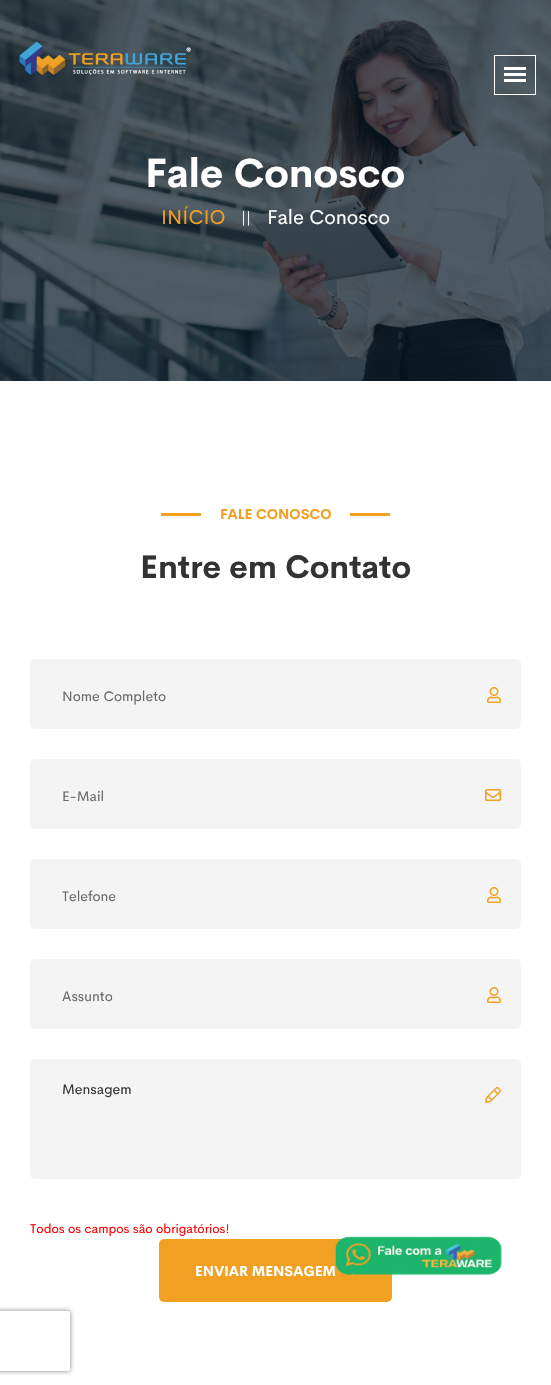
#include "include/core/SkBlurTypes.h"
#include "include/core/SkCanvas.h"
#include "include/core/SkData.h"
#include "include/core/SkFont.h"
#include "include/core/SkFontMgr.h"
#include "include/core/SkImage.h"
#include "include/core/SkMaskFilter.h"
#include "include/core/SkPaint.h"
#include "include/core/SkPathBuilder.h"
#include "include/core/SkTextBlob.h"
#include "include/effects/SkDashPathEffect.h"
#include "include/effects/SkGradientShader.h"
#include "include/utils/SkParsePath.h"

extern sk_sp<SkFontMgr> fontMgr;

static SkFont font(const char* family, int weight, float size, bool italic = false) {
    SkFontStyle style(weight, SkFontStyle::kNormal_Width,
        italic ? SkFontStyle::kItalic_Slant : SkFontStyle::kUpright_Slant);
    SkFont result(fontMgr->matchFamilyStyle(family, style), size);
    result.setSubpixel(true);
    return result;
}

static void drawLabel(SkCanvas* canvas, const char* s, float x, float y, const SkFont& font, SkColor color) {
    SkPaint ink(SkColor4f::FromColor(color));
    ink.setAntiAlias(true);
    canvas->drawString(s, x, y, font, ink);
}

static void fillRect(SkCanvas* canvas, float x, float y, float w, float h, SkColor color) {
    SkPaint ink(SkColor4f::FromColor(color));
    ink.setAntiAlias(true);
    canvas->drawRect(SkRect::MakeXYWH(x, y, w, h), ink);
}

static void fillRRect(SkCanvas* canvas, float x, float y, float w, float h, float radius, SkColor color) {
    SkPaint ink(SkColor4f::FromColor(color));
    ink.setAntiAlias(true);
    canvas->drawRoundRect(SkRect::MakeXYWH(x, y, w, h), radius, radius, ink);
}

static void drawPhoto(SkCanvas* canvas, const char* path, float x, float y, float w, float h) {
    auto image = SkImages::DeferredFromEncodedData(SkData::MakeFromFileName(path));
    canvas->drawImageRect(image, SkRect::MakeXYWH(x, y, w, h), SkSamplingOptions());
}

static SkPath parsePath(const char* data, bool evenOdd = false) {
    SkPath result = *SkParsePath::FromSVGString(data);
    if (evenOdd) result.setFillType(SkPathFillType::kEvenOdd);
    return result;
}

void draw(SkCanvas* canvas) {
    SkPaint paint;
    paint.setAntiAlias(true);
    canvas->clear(0xFFFFFFFF);
    drawPhoto(canvas, "assets/img2.png", 0, 0, 551, 381);
    drawPhoto(canvas, "assets/img1.png", 19, 41, 172, 34);
    paint.setStroke(true);
    paint.setStrokeWidth(1);
    paint.setColor(0xFFFFFFFF);
    canvas->drawRect(SkRect::MakeXYWH(494.5f, 55.5f, 41, 39), paint);
    fillRect(canvas, 504, 67, 22, 3, 0xFFFFFFFF);
    fillRect(canvas, 504, 73, 22, 3, 0xFFFFFFFF);
    fillRect(canvas, 504, 79, 22, 3, 0xFFFFFFFF);
    SkFont font1 = font("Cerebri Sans", 700, 40);
    drawLabel(canvas, "Fale Conosco", 145, 187, font1, 0xFFFFFFFF);
    SkFont font2 = font("Cerebri Sans", 400, 20);
    drawLabel(canvas, "INÍCIO", 161, 224, font2, 0xFFF2A022);
    SkFont font3 = font("Cerebri Sans", 400, 16);
    drawLabel(canvas, "||", 241, 223, font3, 0xFFFFFFFF);
    drawLabel(canvas, "Fale Conosco", 267, 224, font2, 0xFFFFFFFF);
    fillRect(canvas, 161, 513, 40, 3, 0xFFF2A022);
    SkFont font4 = font("Cerebri Sans", 700, 14);
    drawLabel(canvas, "FALE CONOSCO", 220, 519, font4, 0xFFF2A022);
    fillRect(canvas, 350, 513, 40, 3, 0xFFF2A022);
    SkFont font5 = font("Cerebri Sans", 700, 32);
    drawLabel(canvas, "Entre em Contato", 140, 578, font5, 0xFF333333);
    fillRRect(canvas, 30, 659, 491, 70, 5, 0xFFF4F4F4);
    SkFont font6 = font("Cerebri Sans", 400, 14);
    drawLabel(canvas, "Nome Completo", 62, 701, font6, 0xFF696969);
    drawPhoto(canvas, "assets/img3.png", 487, 687, 14, 16);
    fillRRect(canvas, 30, 759, 491, 70, 5, 0xFFF4F4F4);
    drawLabel(canvas, "E-Mail", 62, 801, font6, 0xFF696969);
    drawPhoto(canvas, "assets/img4.png", 485, 789, 16, 12);
    fillRRect(canvas, 30, 859, 491, 70, 5, 0xFFF4F4F4);
    drawLabel(canvas, "Telefone", 62, 901, font6, 0xFF696969);
    drawPhoto(canvas, "assets/img3.png", 487, 887, 14, 16);
    fillRRect(canvas, 30, 959, 491, 70, 5, 0xFFF4F4F4);
    drawLabel(canvas, "Assunto", 62, 1001, font6, 0xFF696969);
    drawPhoto(canvas, "assets/img3.png", 487, 987, 14, 16);
    fillRRect(canvas, 30, 1059, 491, 120, 5, 0xFFF4F4F4);
    drawLabel(canvas, "Mensagem", 62, 1094, font6, 0xFF333333);
    drawPhoto(canvas, "assets/img5.png", 485, 1087, 16, 16);
    SkFont font7 = font("Cerebri Sans", 400, 12.75f);
    drawLabel(canvas, "Todos os campos são obrigatórios!", 30, 1233, font7, 0xFFFF0000);
    fillRRect(canvas, 159, 1239, 233, 63, 5, 0xFFF2A022);
    drawLabel(canvas, "ENVIAR MENSAGEM", 195, 1276, font4, 0xFFFFFFFF);
    drawPhoto(canvas, "assets/img6.png", 344, 1266, 10, 9);
    canvas->save();
    canvas->clipPath(parsePath("M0 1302H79V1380H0ZM-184 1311H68C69 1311 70 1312 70 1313V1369C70 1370 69 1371 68 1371H-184C-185 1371-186 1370-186 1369V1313C-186 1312-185 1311-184 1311Z", true), true);
    paint.setStroke(false);
    paint.setColor(0xFF808080);
    paint.setMaskFilter(SkMaskFilter::MakeBlur(kNormal_SkBlurStyle, 2.5f));
    canvas->drawRoundRect(SkRect::MakeXYWH(-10, 1311, 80, 60), 2, 2, paint);
    paint.setMaskFilter(nullptr);
    canvas->restore();
    drawPhoto(canvas, "assets/img7.png", 335, 1236, 167, 39);
}
